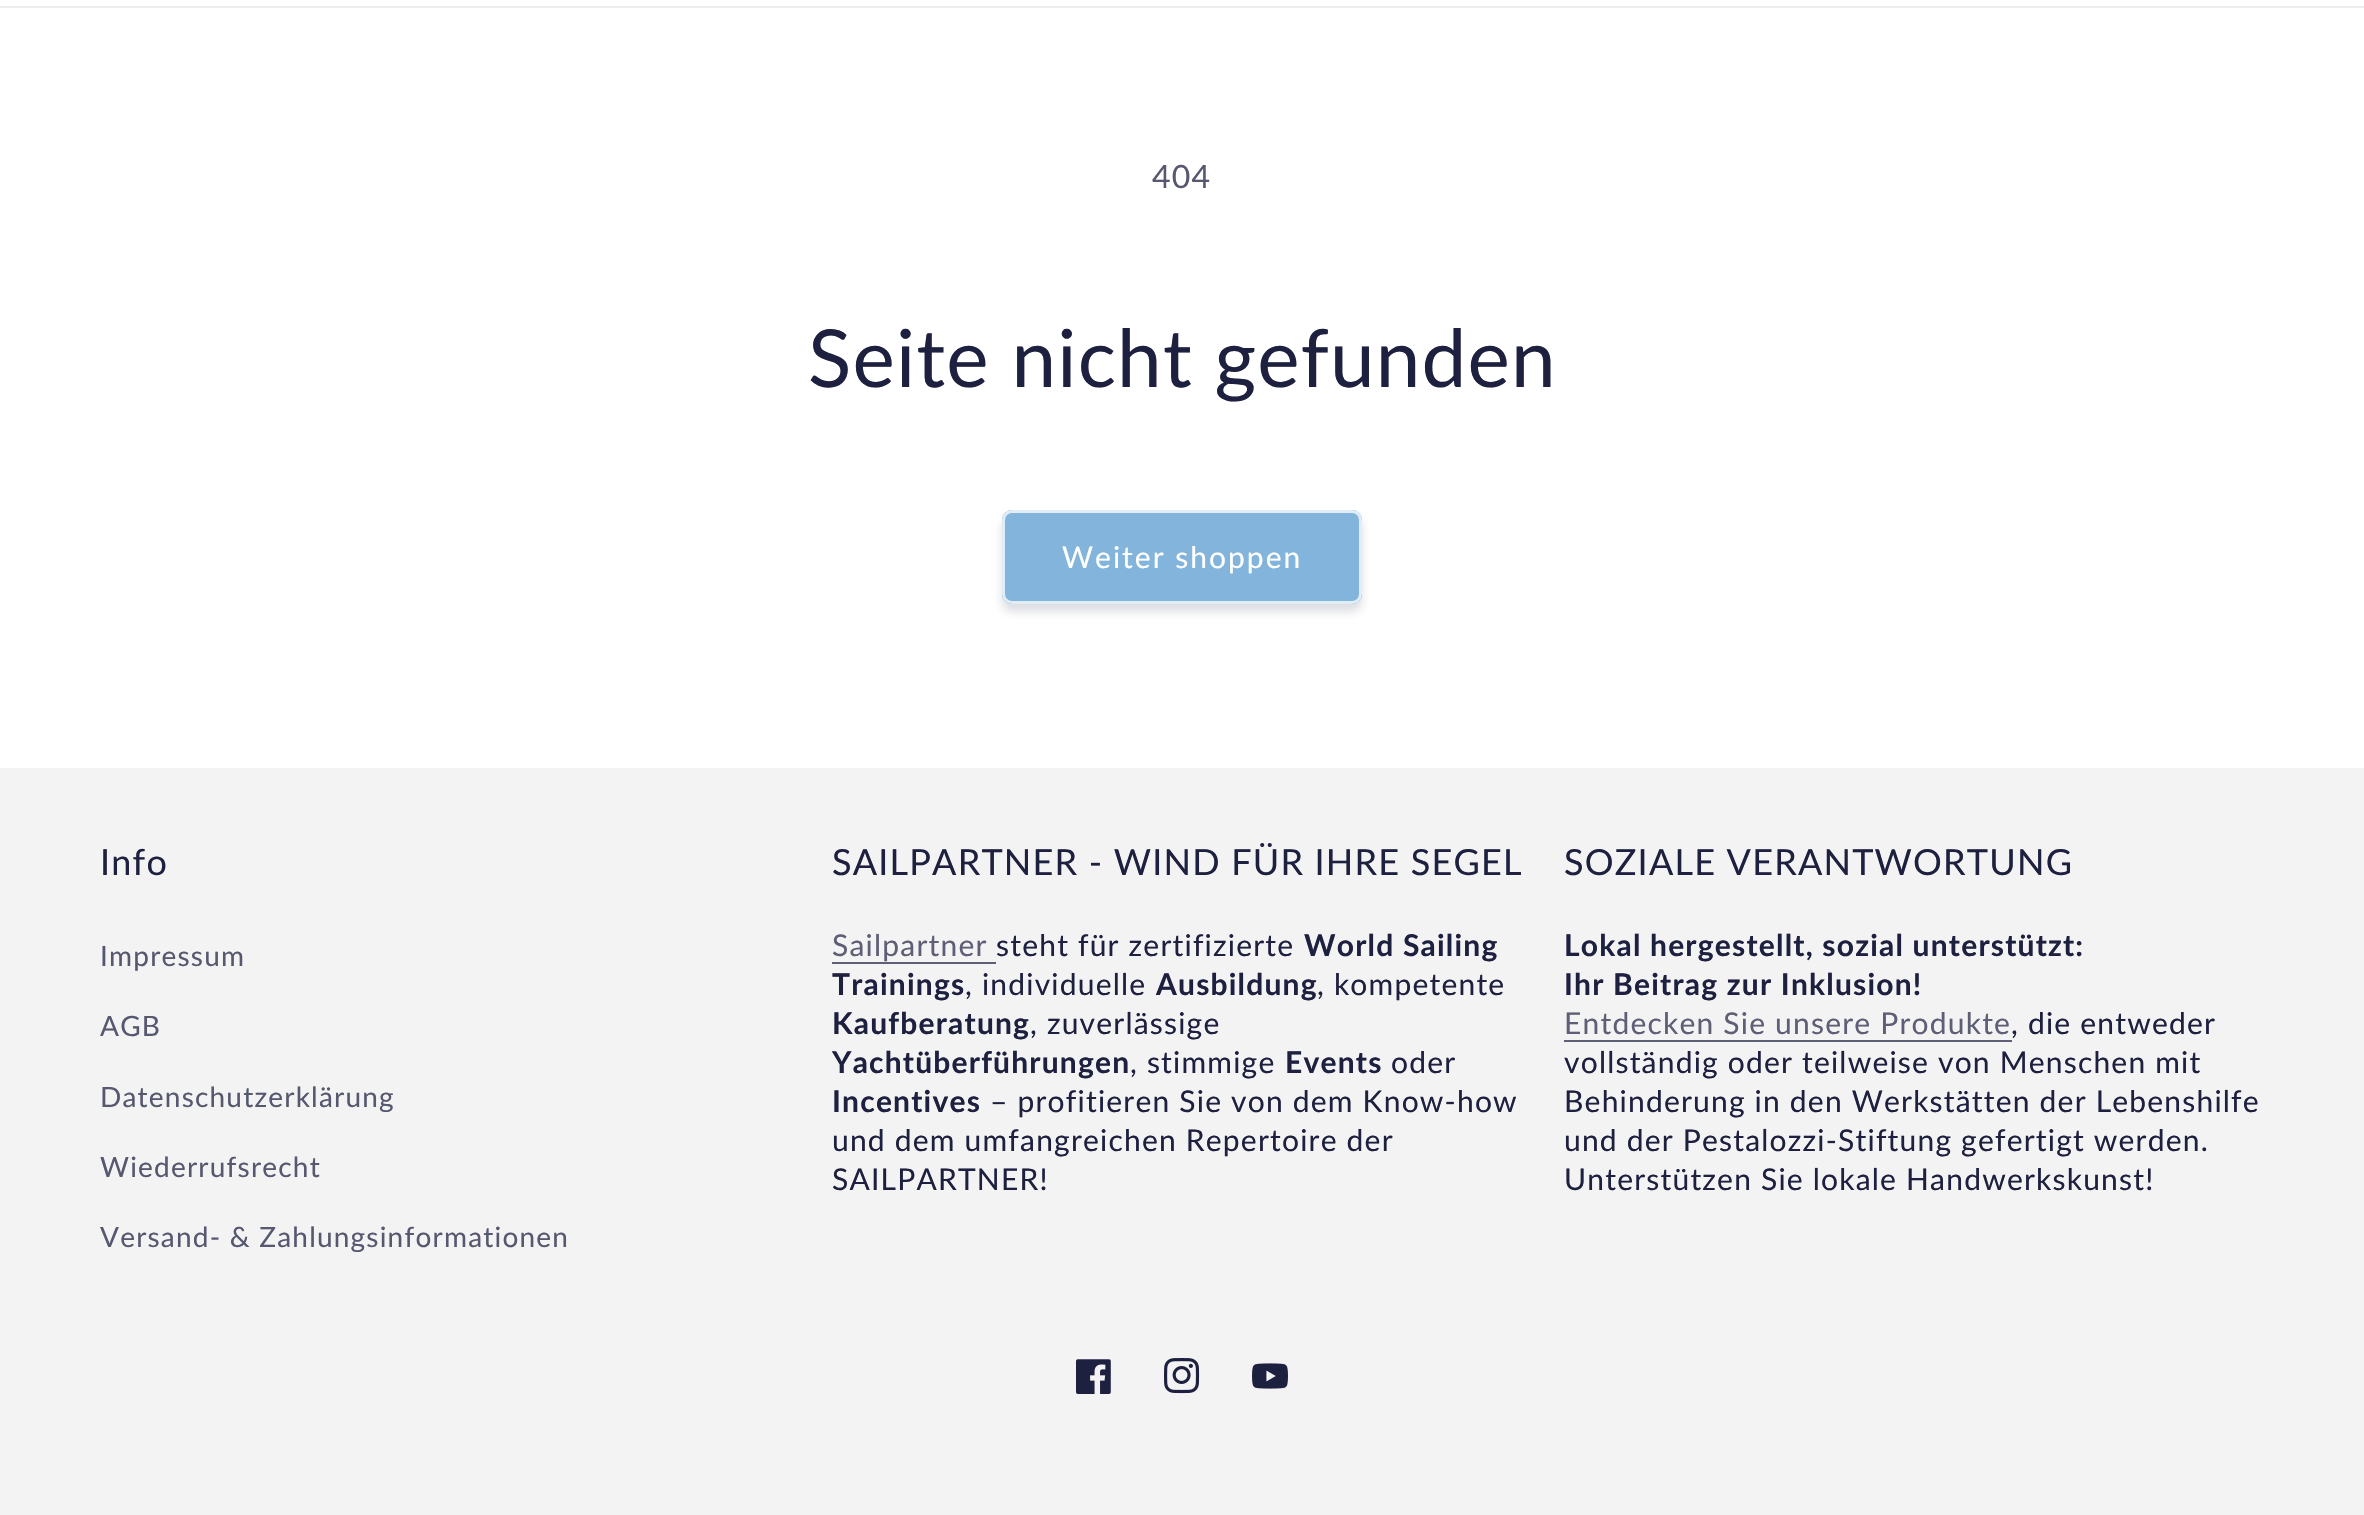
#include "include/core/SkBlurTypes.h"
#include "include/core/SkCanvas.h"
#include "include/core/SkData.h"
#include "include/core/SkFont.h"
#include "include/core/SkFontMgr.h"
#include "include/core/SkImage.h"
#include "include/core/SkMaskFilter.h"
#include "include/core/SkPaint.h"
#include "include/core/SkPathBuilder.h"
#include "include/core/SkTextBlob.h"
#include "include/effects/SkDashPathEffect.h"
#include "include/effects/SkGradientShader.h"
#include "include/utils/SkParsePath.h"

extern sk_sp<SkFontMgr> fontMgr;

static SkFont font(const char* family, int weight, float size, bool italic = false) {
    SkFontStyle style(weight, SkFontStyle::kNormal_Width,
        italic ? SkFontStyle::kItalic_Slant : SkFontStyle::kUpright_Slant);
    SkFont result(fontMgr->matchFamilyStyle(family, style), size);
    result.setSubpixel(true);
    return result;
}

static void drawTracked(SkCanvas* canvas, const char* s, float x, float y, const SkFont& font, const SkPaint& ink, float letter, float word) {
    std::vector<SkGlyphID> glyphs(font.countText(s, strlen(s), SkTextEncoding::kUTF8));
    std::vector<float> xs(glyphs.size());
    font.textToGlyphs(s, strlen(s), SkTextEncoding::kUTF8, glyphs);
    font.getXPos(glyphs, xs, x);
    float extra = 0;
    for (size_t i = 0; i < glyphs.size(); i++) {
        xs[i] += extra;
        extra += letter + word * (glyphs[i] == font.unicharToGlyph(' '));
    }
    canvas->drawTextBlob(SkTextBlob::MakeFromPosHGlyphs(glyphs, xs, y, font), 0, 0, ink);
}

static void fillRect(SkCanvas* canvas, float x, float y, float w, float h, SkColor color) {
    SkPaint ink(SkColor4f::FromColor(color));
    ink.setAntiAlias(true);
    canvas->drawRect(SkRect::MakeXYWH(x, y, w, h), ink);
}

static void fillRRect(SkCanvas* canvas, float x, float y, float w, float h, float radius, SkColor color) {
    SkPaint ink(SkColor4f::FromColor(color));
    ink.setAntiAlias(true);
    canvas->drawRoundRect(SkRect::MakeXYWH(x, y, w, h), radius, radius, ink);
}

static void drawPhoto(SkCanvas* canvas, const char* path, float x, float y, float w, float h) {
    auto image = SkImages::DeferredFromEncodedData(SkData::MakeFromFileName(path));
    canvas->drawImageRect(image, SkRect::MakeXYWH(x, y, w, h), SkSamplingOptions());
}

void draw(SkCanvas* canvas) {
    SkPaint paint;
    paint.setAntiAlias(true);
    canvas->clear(0xFFFFFFFF);
    fillRect(canvas, 0, 6, 2364, 2, 0xFFEDEDF0);
    SkFont font1 = font("Lato", 400, 32);
    paint.setColor(0xFF565870);
    drawTracked(canvas, "404", 1152, 188, font1, paint, 1.2f, 0);
    SkFont font2 = font("Lato", 400, 80);
    paint.setColor(0xFF1E2040);
    drawTracked(canvas, "Seite nicht gefunden", 808, 387, font2, paint, 1.2f, 0);
    paint.setColor(0x261E2040);
    paint.setMaskFilter(SkMaskFilter::MakeBlur(kNormal_SkBlurStyle, 5));
    canvas->drawRoundRect(SkRect::MakeXYWH(1002, 518, 360, 94), 10, 10, paint);
    paint.setMaskFilter(nullptr);
    fillRRect(canvas, 1002, 510, 360, 94, 10, 0xFF83B4DC);
    paint.setStroke(true);
    paint.setStrokeWidth(2);
    paint.setColor(0xFF83B4DC);
    canvas->drawRoundRect(SkRect::MakeXYWH(1003, 511, 358, 92), 9, 9, paint);
    paint.setStrokeWidth(3);
    paint.setColor(0xBFFFFFFF);
    canvas->drawRoundRect(SkRect::MakeXYWH(1003.5f, 511.5f, 357, 91), 8.5f, 8.5f, paint);
    SkFont font3 = font("Lato", 400, 30);
    paint.setStroke(false);
    paint.setColor(0xFFFFFFFF);
    drawTracked(canvas, "Weiter shoppen", 1062, 568, font3, paint, 2, 0);
    fillRect(canvas, 0, 768, 2364, 747, 0xFFF3F3F3);
    SkFont font4 = font("Lato", 400, 36);
    paint.setColor(0xFF1E2040);
    drawTracked(canvas, "Info", 100, 875, font4, paint, 1.2f, 0);
    SkFont font5 = font("Lato", 400, 28);
    paint.setColor(0xFF565870);
    drawTracked(canvas, "Impressum", 100, 966, font5, paint, 1.2f, 0);
    drawTracked(canvas, "AGB", 100, 1036, font5, paint, 1.2f, 0);
    drawTracked(canvas, "Datenschutzerklärung", 100, 1107, font5, paint, 1.2f, 0);
    drawTracked(canvas, "Wiederrufsrecht", 100, 1177, font5, paint, 1.2f, 0);
    drawTracked(canvas, "Versand- & Zahlungsinformationen", 100, 1247, font5, paint, 1.2f, 0);
    paint.setColor(0xFF1E2040);
    drawTracked(canvas, "SAILPARTNER - WIND FÜR IHRE SEGEL", 832, 875, font4, paint, 1.2f, 0);
    paint.setColor(0xFF5E5F76);
    drawTracked(canvas, "Sailpartner", 832, 956, font3, paint, 1.2f, 0);
    fillRect(canvas, 832, 962, 164, 2, 0xFF5E5F76);
    paint.setColor(0xFF1E2040);
    drawTracked(canvas, "steht für zertifizierte", 996, 956, font3, paint, 1.2f, 0);
    SkFont font6 = font("Lato", 700, 30);
    drawTracked(canvas, "World Sailing", 1304, 956, font6, paint, 1.2f, 0);
    drawTracked(canvas, "Trainings", 832, 995, font6, paint, 1.2f, 0);
    drawTracked(canvas, ", individuelle", 965, 995, font3, paint, 1.2f, 0);
    drawTracked(canvas, "Ausbildung", 1156, 995, font6, paint, 1.2f, 0);
    drawTracked(canvas, ", kompetente", 1317, 995, font3, paint, 1.2f, 0);
    drawTracked(canvas, "Kaufberatung", 832, 1034, font6, paint, 1.2f, 0);
    drawTracked(canvas, ", zuverlässige", 1030, 1034, font3, paint, 1.2f, 0);
    drawTracked(canvas, "Yachtüberführungen", 832, 1073, font6, paint, 1.2f, 0);
    drawTracked(canvas, ", stimmige", 1130, 1073, font3, paint, 1.2f, 0);
    drawTracked(canvas, "Events", 1285, 1073, font6, paint, 1.2f, 0);
    drawTracked(canvas, "oder", 1391, 1073, font3, paint, 1.2f, 0);
    drawTracked(canvas, "Incentives", 832, 1112, font6, paint, 1.2f, 0);
    drawTracked(canvas, "– profitieren Sie von dem Know-how", 990, 1112, font3, paint, 1.2f, 0);
    drawTracked(canvas, "und dem umfangreichen Repertoire der", 832, 1151, font3, paint, 1.2f, 0);
    drawTracked(canvas, "SAILPARTNER!", 832, 1190, font3, paint, 1.2f, 0);
    drawTracked(canvas, "SOZIALE VERANTWORTUNG", 1564, 875, font4, paint, 1.2f, 0);
    drawTracked(canvas, "Lokal hergestellt, sozial unterstützt:", 1564, 956, font6, paint, 1.2f, 0);
    drawTracked(canvas, "Ihr Beitrag zur Inklusion!", 1564, 995, font6, paint, 1.2f, 0);
    paint.setColor(0xFF5E5F76);
    drawTracked(canvas, "Entdecken Sie unsere Produkte", 1564, 1034, font3, paint, 1.2f, 0);
    fillRect(canvas, 1564, 1040, 448, 2, 0xFF5E5F76);
    paint.setColor(0xFF1E2040);
    drawTracked(canvas, ", die entweder", 2011, 1034, font3, paint, 1.2f, 0);
    drawTracked(canvas, "vollständig oder teilweise von Menschen mit", 1564, 1073, font3, paint, 1.2f, 0);
    drawTracked(canvas, "Behinderung in den Werkstätten der Lebenshilfe", 1564, 1112, font3, paint, 1.2f, 0);
    drawTracked(canvas, "und der Pestalozzi-Stiftung gefertigt werden.", 1564, 1151, font3, paint, 1.2f, 0);
    drawTracked(canvas, "Unterstützen Sie lokale Handwerkskunst!", 1564, 1190, font3, paint, 1.2f, 0);
    drawPhoto(canvas, "assets/img1.png", 1076, 1359, 35, 35);
    drawPhoto(canvas, "assets/img2.png", 1164, 1358, 36, 36);
    drawPhoto(canvas, "assets/img3.png", 1252, 1363, 36, 26);
}
